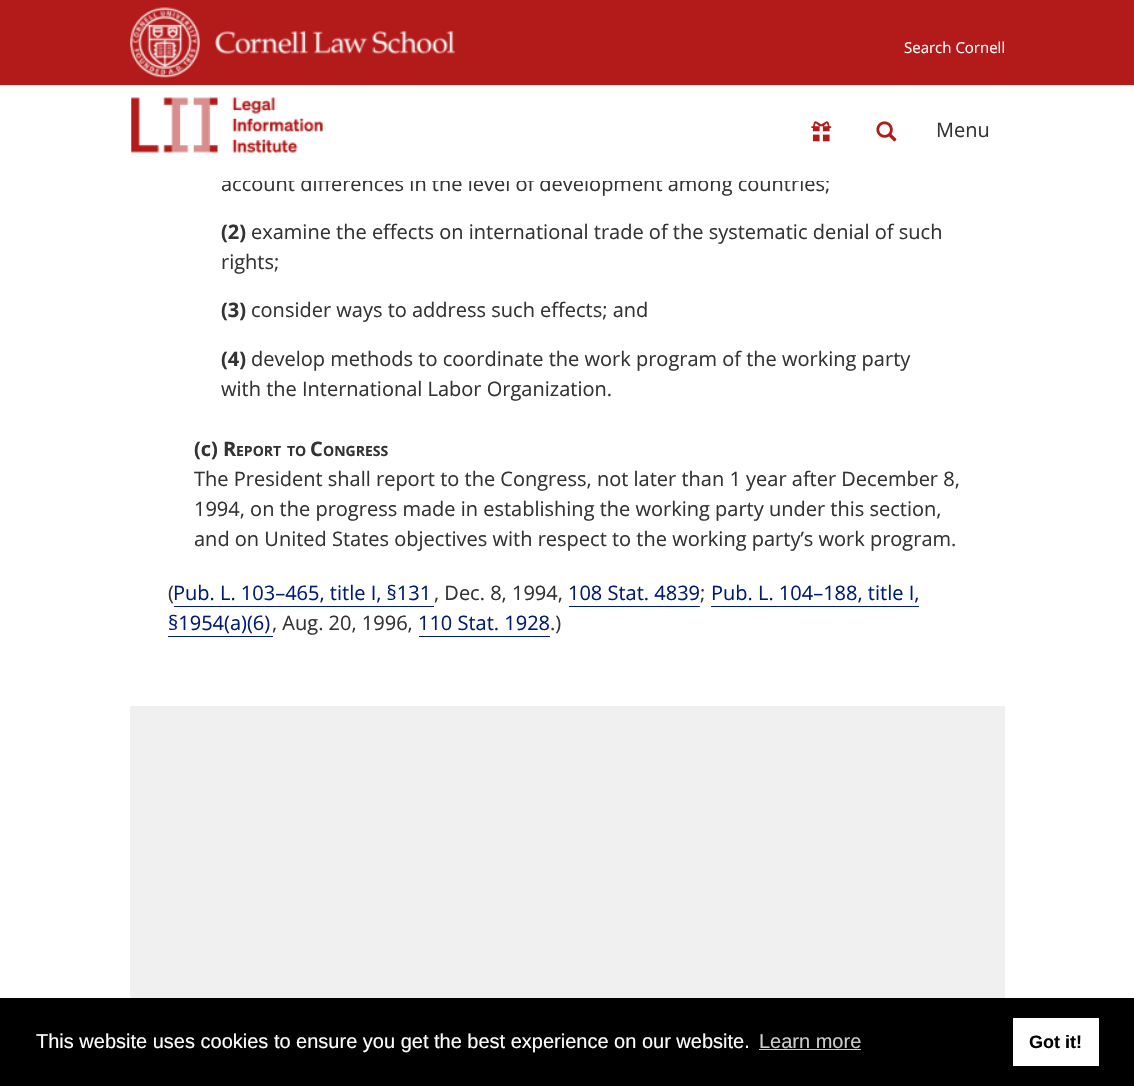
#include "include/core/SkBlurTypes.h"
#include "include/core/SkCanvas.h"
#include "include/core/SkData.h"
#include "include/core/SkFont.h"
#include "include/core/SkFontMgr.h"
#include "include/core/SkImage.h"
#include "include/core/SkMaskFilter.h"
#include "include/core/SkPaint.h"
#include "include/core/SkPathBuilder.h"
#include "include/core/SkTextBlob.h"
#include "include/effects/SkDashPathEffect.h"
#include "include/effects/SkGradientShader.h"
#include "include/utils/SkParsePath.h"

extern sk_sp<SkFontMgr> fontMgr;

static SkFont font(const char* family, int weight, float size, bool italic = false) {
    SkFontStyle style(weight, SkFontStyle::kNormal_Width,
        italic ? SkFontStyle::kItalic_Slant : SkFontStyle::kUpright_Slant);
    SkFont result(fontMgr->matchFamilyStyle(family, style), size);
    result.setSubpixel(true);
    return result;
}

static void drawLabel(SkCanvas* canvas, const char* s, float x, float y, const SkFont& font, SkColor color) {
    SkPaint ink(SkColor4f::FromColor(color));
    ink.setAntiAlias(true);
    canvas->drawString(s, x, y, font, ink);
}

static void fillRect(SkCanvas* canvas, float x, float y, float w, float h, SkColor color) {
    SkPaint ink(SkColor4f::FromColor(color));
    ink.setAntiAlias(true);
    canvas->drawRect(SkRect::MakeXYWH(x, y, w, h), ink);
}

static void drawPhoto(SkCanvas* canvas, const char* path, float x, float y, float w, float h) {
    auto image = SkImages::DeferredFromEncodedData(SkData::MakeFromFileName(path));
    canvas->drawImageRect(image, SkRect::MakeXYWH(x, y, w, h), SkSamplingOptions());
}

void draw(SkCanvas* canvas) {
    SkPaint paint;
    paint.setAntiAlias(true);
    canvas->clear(0xFFFFFFFF);
    fillRect(canvas, 0, 0, 1134, 85, 0xFFB31B1B);
    drawPhoto(canvas, "assets/img1.png", 130, 7, 70, 71);
    drawPhoto(canvas, "assets/img2.png", 215, 30, 240, 24);
    SkFont font1 = font("Open Sans", 400, 15);
    drawLabel(canvas, "Search Cornell", 904, 53, font1, 0xFFFFFFFF);
    SkFont font2 = font("Open Sans", 400, 20);
    drawLabel(canvas, "account differences in the level of development among countries;", 221, 191, font2, 0xFF333333);
    fillRect(canvas, 223, 175, 606, 6, 0xFFFFFFFF);
    drawPhoto(canvas, "assets/img3.png", 131, 97, 192, 56);
    drawPhoto(canvas, "assets/img4.png", 811, 121, 21, 21);
    drawPhoto(canvas, "assets/img5.png", 876, 121, 21, 21);
    drawLabel(canvas, "Menu", 936, 137, font2, 0xFF333333);
    SkFont font3 = font("Open Sans", 700, 20);
    drawLabel(canvas, "(2)", 221, 239, font3, 0xFF333333);
    drawLabel(canvas, "examine the effects on international trade of the systematic denial of such", 251, 239, font2, 0xFF333333);
    drawLabel(canvas, "rights;", 221, 269, font2, 0xFF333333);
    drawLabel(canvas, "(3)", 221, 317, font3, 0xFF333333);
    drawLabel(canvas, "consider ways to address such effects; and", 251, 317, font2, 0xFF333333);
    drawLabel(canvas, "(4)", 221, 366, font3, 0xFF333333);
    drawLabel(canvas, "develop methods to coordinate the work program of the working party", 251, 366, font2, 0xFF333333);
    drawLabel(canvas, "with the International Labor Organization.", 221, 396, font2, 0xFF333333);
    drawLabel(canvas, "(c) R", 194, 456, font3, 0xFF333333);
    SkFont font4 = font("Open Sans", 700, 14);
    drawLabel(canvas, "EPORT", 236, 456, font4, 0xFF333333);
    drawLabel(canvas, "TO", 287, 456, font4, 0xFF333333);
    drawLabel(canvas, "C", 310, 456, font3, 0xFF333333);
    drawLabel(canvas, "ONGRESS", 323, 456, font4, 0xFF333333);
    drawLabel(canvas, "The President shall report to the Congress, not later than 1 year after December 8,", 194, 486, font2, 0xFF333333);
    drawLabel(canvas, "1994, on the progress made in establishing the working party under this section,", 194, 516, font2, 0xFF333333);
    drawLabel(canvas, "and on United States objectives with respect to the working party’s work program.", 194, 546, font2, 0xFF333333);
    drawLabel(canvas, "(", 168, 600, font2, 0xFF333333);
    drawLabel(canvas, "Pub. L. 103–465, title I, § 131", 173, 600, font2, 0xFF001C72);
    fillRect(canvas, 174, 606, 260, 1, 0xFF001C72);
    drawLabel(canvas, ", Dec. 8, 1994,", 434, 600, font2, 0xFF333333);
    drawLabel(canvas, "108 Stat. 4839", 568, 600, font2, 0xFF001C72);
    fillRect(canvas, 569, 606, 131, 1, 0xFF001C72);
    drawLabel(canvas, ";", 700, 600, font2, 0xFF333333);
    drawLabel(canvas, "Pub. L. 104–188, title I,", 711, 600, font2, 0xFF001C72);
    fillRect(canvas, 711, 606, 208, 1, 0xFF001C72);
    drawLabel(canvas, "§ 1954(a)(6)", 168, 630, font2, 0xFF001C72);
    fillRect(canvas, 168, 636, 105, 1, 0xFF001C72);
    drawLabel(canvas, ", Aug. 20, 1996,", 272, 630, font2, 0xFF333333);
    drawLabel(canvas, "110 Stat. 1928", 418, 630, font2, 0xFF001C72);
    fillRect(canvas, 419, 636, 131, 1, 0xFF001C72);
    drawLabel(canvas, ".)", 550, 630, font2, 0xFF333333);
    fillRect(canvas, 130, 706, 875, 292, 0xFFF0F0F0);
    fillRect(canvas, 0, 998, 1134, 88, 0xFF000000);
    SkFont font5 = font("Liberation Sans", 400, 20);
    drawLabel(canvas, "This website uses cookies to ensure you get the best experience on our website.", 36, 1048, font5, 0xFFFFFFFF);
    drawLabel(canvas, "Learn more", 759, 1048, font5, 0xFFCCCCCC);
    fillRect(canvas, 759, 1049, 102, 1, 0xFFCCCCCC);
    fillRect(canvas, 1013, 1018, 86, 48, 0xFFFFFFFF);
    SkFont font6 = font("Liberation Sans", 700, 18);
    drawLabel(canvas, "Got it!", 1029, 1048, font6, 0xFF000000);
}
